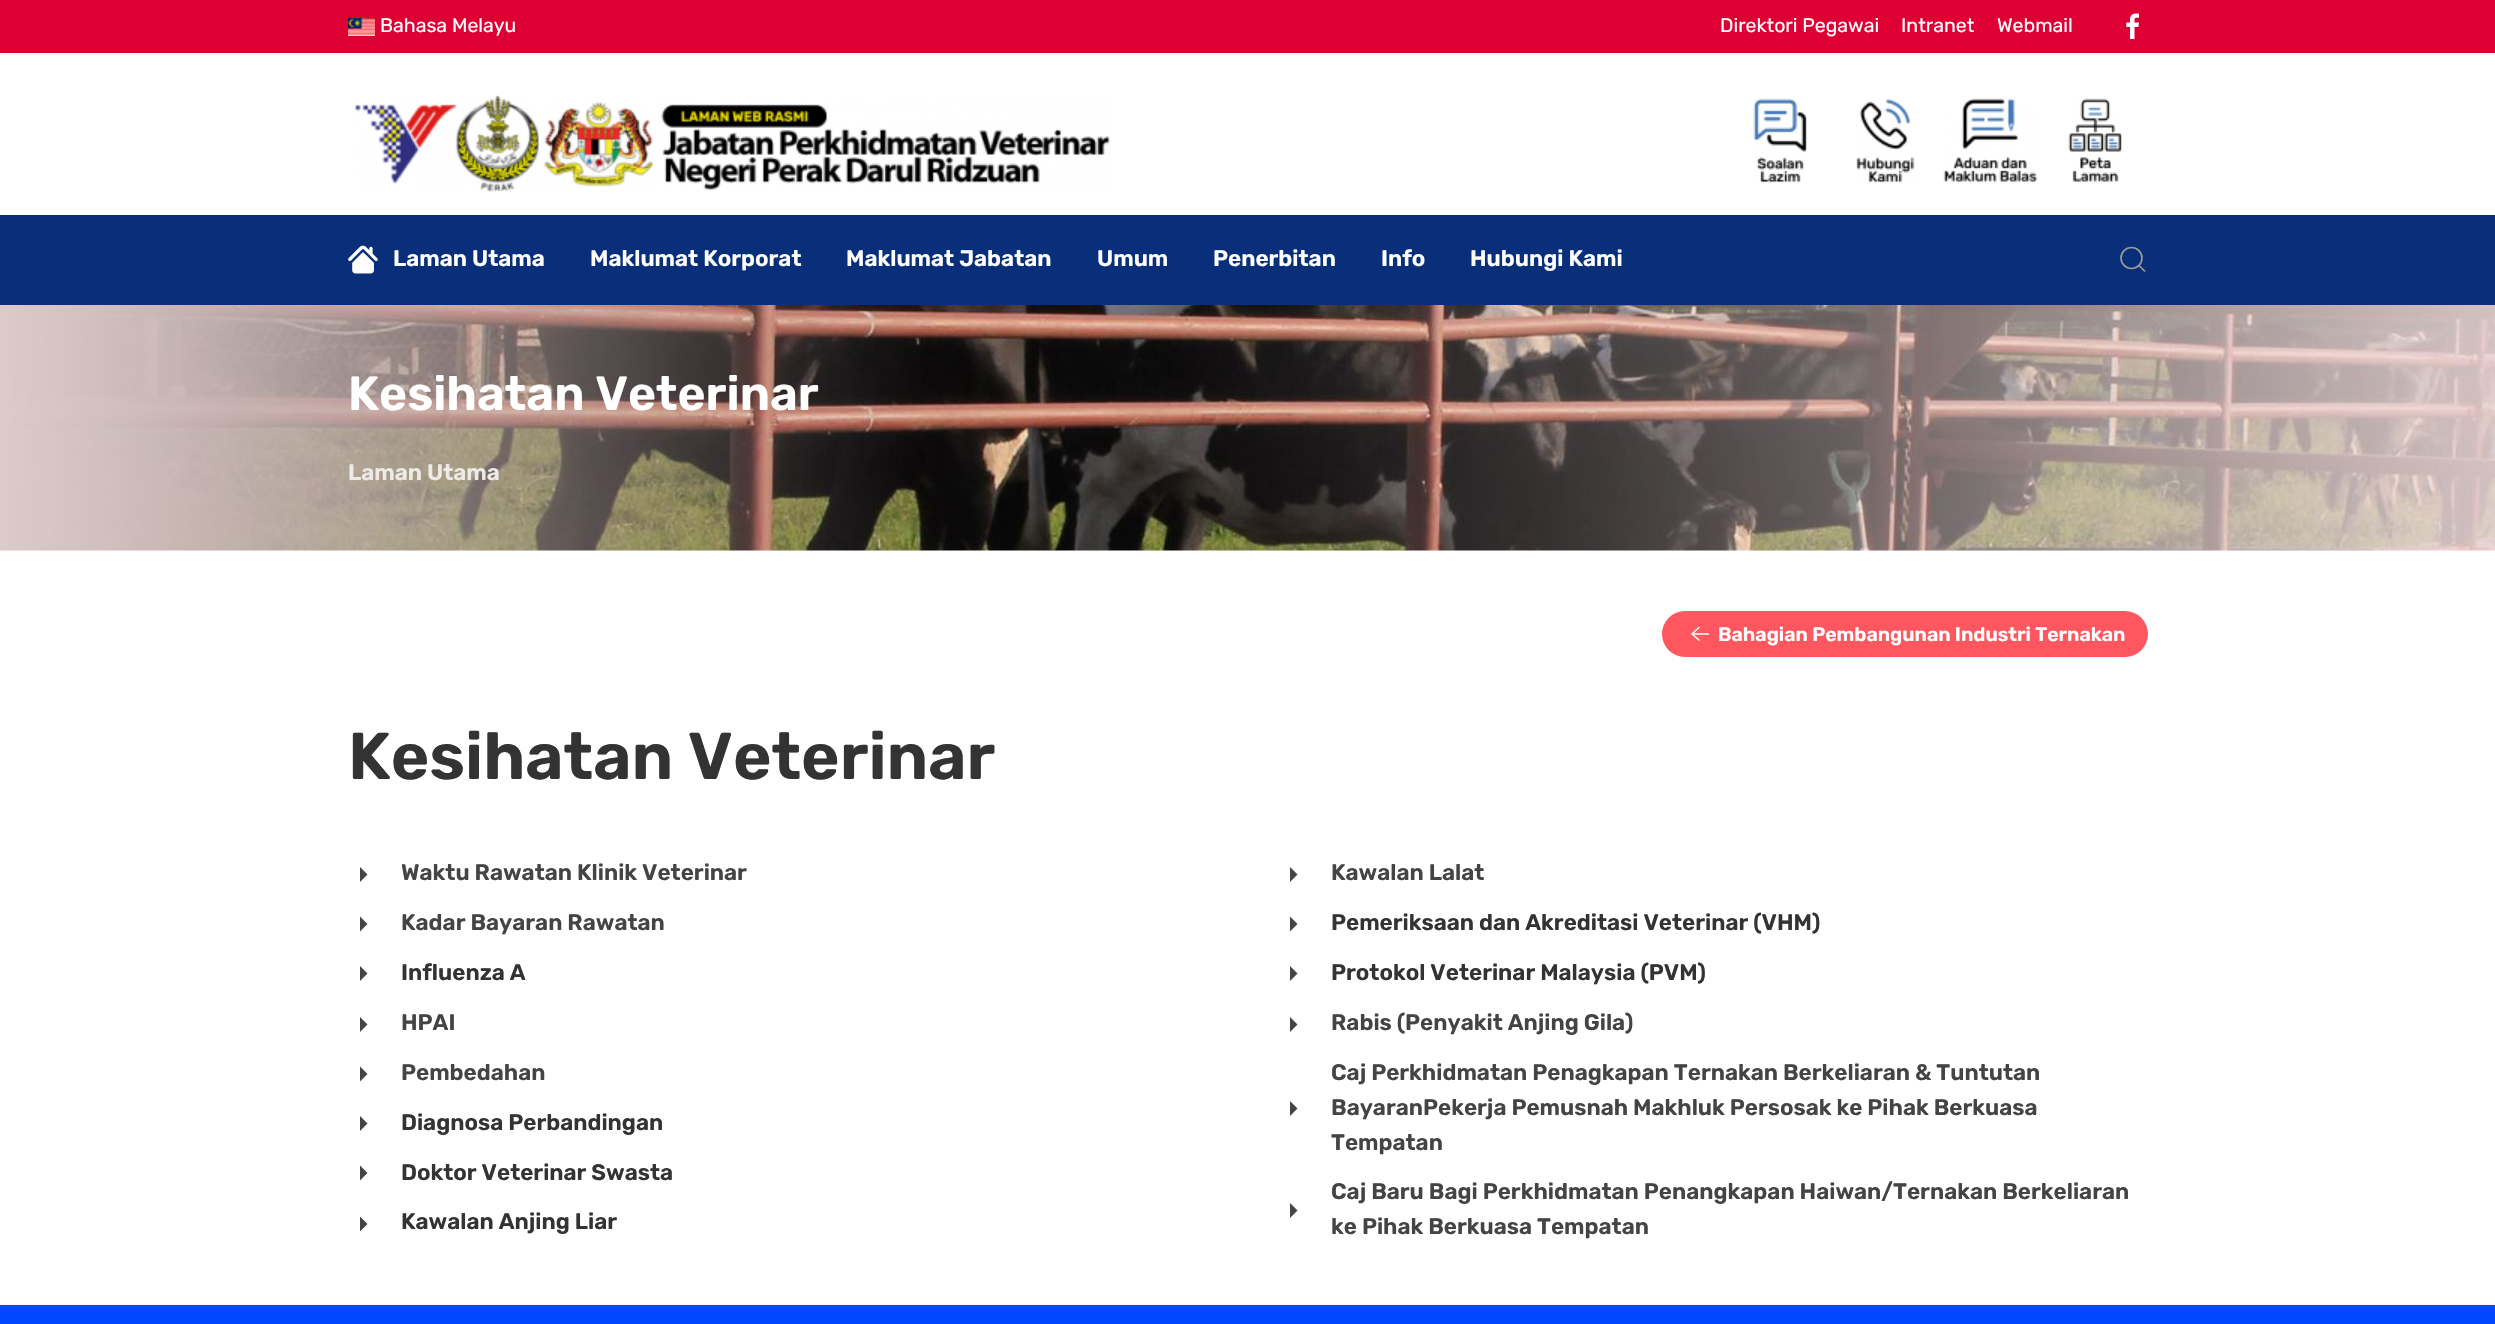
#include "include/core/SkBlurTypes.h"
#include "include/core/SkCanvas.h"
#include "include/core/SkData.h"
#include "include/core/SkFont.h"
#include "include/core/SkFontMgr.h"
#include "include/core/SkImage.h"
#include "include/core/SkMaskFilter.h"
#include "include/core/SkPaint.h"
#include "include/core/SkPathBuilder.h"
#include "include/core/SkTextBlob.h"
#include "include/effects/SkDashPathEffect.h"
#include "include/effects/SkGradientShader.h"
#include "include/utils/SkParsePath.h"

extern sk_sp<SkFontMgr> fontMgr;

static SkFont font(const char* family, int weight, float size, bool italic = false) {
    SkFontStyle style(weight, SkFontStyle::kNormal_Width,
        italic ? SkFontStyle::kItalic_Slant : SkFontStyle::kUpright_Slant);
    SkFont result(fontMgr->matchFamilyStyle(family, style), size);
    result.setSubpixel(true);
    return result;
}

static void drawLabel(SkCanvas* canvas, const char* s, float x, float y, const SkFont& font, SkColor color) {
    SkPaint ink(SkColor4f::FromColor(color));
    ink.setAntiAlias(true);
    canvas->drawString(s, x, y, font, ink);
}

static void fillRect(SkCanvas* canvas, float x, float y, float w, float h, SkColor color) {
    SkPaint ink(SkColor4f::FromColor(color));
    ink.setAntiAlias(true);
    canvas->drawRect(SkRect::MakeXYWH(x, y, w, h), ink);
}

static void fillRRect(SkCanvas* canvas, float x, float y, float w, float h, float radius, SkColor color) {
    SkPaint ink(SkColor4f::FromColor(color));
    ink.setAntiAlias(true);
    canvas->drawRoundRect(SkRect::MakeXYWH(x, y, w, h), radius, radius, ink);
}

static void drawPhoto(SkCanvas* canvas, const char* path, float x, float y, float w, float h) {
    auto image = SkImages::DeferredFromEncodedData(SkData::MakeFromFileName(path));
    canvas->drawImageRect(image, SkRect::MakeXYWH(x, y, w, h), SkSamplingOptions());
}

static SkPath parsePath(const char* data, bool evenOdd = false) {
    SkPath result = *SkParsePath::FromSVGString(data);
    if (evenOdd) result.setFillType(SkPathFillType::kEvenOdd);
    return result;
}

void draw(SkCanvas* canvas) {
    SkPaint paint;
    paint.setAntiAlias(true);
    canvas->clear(0xFFFFFFFF);
    fillRect(canvas, 0, 0, 2495, 53, 0xFFDF0033);
    drawPhoto(canvas, "assets/img1.png", 348, 18, 27, 18);
    SkFont font1 = font("Rubik", 300, 19.5f);
    drawLabel(canvas, "Bahasa Melayu", 380, 32, font1, 0xFFFFFFFF);
    drawLabel(canvas, "Direktori Pegawai", 1720, 32, font1, 0xFFFFFFFF);
    drawLabel(canvas, "Intranet", 1901, 32, font1, 0xFFFFFFFF);
    drawLabel(canvas, "Webmail", 1997, 32, font1, 0xFFFFFFFF);
    drawPhoto(canvas, "assets/img2.png", 2126, 13, 13, 26);
    drawPhoto(canvas, "assets/img3.png", 355, 95, 756, 97);
    drawPhoto(canvas, "assets/img4.png", 1753, 98, 54, 85);
    drawPhoto(canvas, "assets/img5.png", 1856, 98, 59, 85);
    drawPhoto(canvas, "assets/img6.png", 1943, 98, 95, 84);
    drawPhoto(canvas, "assets/img7.png", 2068, 98, 54, 84);
    fillRect(canvas, 0, 215, 2495, 90, 0xFF092F7B);
    drawPhoto(canvas, "assets/img8.png", 348, 245, 30, 29);
    SkFont font2 = font("Rubik", 600, 22.5f);
    drawLabel(canvas, "Laman Utama", 393, 266, font2, 0xFFFFFFFF);
    drawLabel(canvas, "Maklumat Korporat", 590, 266, font2, 0xFFFFFFFF);
    drawLabel(canvas, "Maklumat Jabatan", 846, 266, font2, 0xFFFFFFFF);
    drawLabel(canvas, "Umum", 1097, 266, font2, 0xFFFFFFFF);
    drawLabel(canvas, "Penerbitan", 1213, 266, font2, 0xFFFFFFFF);
    drawLabel(canvas, "Info", 1381, 266, font2, 0xFFFFFFFF);
    drawLabel(canvas, "Hubungi Kami", 1470, 266, font2, 0xFFFFFFFF);
    paint.setStroke(true);
    paint.setStrokeWidth(1.7f);
    paint.setColor(0xFF999999);
    canvas->drawCircle(2131.5f, 258, 10.5f, paint);
    canvas->drawPath(parsePath("M2139 265.5L2145 271.5Z"), paint);
    drawPhoto(canvas, "assets/img9.png", 0, 305, 2495, 246);
    SkFont font3 = font("Rubik", 600, 48);
    drawLabel(canvas, "Kesihatan Veterinar", 348, 410, font3, 0xFFFFFFFF);
    drawLabel(canvas, "Laman Utama", 348, 480, font2, 0xFFEDEAE7);
    fillRRect(canvas, 1662, 611, 486, 46, 23, 0xFFFF575F);
    paint.setStrokeWidth(1.5f);
    paint.setColor(0xFFFFFFFF);
    canvas->drawPath(parsePath("M1699.5 640.5L1692 634L1699.5 627"), paint);
    fillRect(canvas, 1692, 633, 17, 2, 0xBFFFFFFF);
    SkFont font4 = font("Rubik", 600, 19.5f);
    drawLabel(canvas, "Bahagian Pembangunan Industri Ternakan", 1718, 641, font4, 0xFFFFFFFF);
    SkFont font5 = font("Rubik", 600, 66);
    drawLabel(canvas, "Kesihatan Veterinar", 348, 779, font5, 0xFF333333);
    paint.setStroke(false);
    paint.setColor(0xFF444444);
    canvas->drawPath(parsePath("M360 867L367.5 874.5L360 882Z"), paint);
    drawLabel(canvas, "Waktu Rawatan Klinik Veterinar", 401, 880, font2, 0xFF444444);
    canvas->drawPath(parsePath("M360 916.5L367.5 924L360 931.5Z"), paint);
    drawLabel(canvas, "Kadar Bayaran Rawatan", 401, 930, font2, 0xFF444444);
    canvas->drawPath(parsePath("M360 966L367.5 973.5L360 981Z"), paint);
    drawLabel(canvas, "Influenza A", 401, 980, font2, 0xFF333333);
    canvas->drawPath(parsePath("M360 1017L367.5 1024.5L360 1032Z"), paint);
    drawLabel(canvas, "HPAI", 401, 1030, font2, 0xFF444444);
    canvas->drawPath(parsePath("M360 1066.5L367.5 1074L360 1081.5Z"), paint);
    drawLabel(canvas, "Pembedahan", 401, 1080, font2, 0xFF444444);
    canvas->drawPath(parsePath("M360 1116L367.5 1123.5L360 1131Z"), paint);
    drawLabel(canvas, "Diagnosa Perbandingan", 401, 1130, font2, 0xFF333333);
    canvas->drawPath(parsePath("M360 1165.5L367.5 1173L360 1180.5Z"), paint);
    drawLabel(canvas, "Doktor Veterinar Swasta", 401, 1180, font2, 0xFF333333);
    canvas->drawPath(parsePath("M360 1216.5L367.5 1224L360 1231.5Z"), paint);
    drawLabel(canvas, "Kawalan Anjing Liar", 401, 1229, font2, 0xFF333333);
    canvas->drawPath(parsePath("M1290 867L1297.5 874.5L1290 882Z"), paint);
    drawLabel(canvas, "Kawalan Lalat", 1331, 880, font2, 0xFF444444);
    canvas->drawPath(parsePath("M1290 916.5L1297.5 924L1290 931.5Z"), paint);
    drawLabel(canvas, "Pemeriksaan dan Akreditasi Veterinar (VHM)", 1331, 930, font2, 0xFF333333);
    canvas->drawPath(parsePath("M1290 966L1297.5 973.5L1290 981Z"), paint);
    drawLabel(canvas, "Protokol Veterinar Malaysia (PVM)", 1331, 980, font2, 0xFF333333);
    canvas->drawPath(parsePath("M1290 1017L1297.5 1024.5L1290 1032Z"), paint);
    drawLabel(canvas, "Rabis (Penyakit Anjing Gila)", 1331, 1030, font2, 0xFF444444);
    canvas->drawPath(parsePath("M1290 1101L1297.5 1108.5L1290 1116Z"), paint);
    drawLabel(canvas, "Caj Perkhidmatan Penagkapan Ternakan Berkeliaran & Tuntutan", 1331, 1080, font2, 0xFF444444);
    drawLabel(canvas, "BayaranPekerja Pemusnah Makhluk Persosak ke Pihak Berkuasa", 1331, 1115, font2, 0xFF444444);
    drawLabel(canvas, "Tempatan", 1331, 1150, font2, 0xFF444444);
    canvas->drawPath(parsePath("M1290 1203L1297.5 1210.5L1290 1218Z"), paint);
    drawLabel(canvas, "Caj Baru Bagi Perkhidmatan Penangkapan Haiwan/Ternakan Berkeliaran", 1331, 1199, font2, 0xFF444444);
    drawLabel(canvas, "ke Pihak Berkuasa Tempatan", 1331, 1234, font2, 0xFF444444);
    fillRect(canvas, 0, 1305, 2495, 19, 0xFF0048FF);
}
